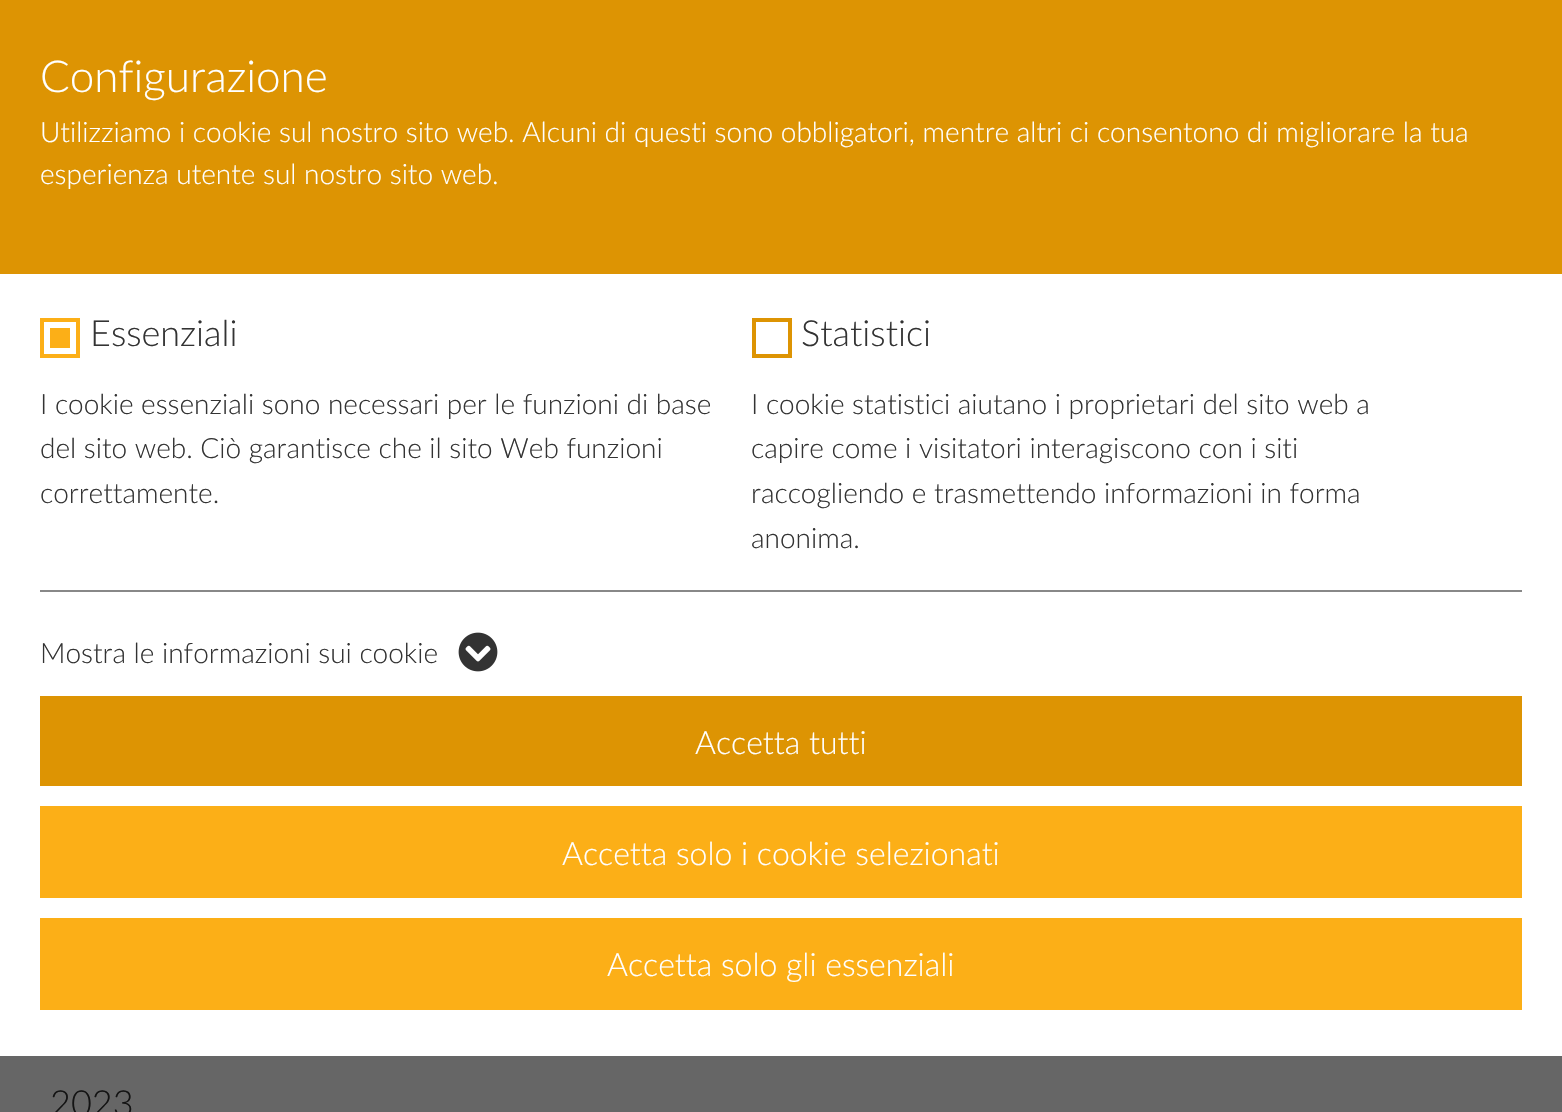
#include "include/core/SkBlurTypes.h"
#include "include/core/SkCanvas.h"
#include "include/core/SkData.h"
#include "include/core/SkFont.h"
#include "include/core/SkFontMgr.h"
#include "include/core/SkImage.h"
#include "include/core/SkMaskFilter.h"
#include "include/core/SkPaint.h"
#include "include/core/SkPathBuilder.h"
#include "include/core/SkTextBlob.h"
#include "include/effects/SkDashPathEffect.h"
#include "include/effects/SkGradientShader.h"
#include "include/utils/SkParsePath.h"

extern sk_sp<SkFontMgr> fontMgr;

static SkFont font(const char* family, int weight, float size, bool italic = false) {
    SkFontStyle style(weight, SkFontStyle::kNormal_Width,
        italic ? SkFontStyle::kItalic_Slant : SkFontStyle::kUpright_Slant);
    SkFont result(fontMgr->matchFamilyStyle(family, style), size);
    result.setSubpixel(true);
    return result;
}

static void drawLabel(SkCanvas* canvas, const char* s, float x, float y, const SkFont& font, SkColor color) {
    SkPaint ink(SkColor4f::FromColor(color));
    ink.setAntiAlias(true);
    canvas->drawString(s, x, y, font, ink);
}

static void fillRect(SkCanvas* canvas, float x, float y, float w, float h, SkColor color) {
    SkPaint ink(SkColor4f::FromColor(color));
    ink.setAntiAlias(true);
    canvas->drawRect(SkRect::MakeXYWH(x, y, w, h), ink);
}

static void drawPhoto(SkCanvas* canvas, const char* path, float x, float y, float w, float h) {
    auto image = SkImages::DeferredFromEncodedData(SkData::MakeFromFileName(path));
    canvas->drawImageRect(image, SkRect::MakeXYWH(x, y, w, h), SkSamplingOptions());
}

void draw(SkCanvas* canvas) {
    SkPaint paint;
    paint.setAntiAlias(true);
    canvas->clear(0xFF666666);
    fillRect(canvas, 0, 274, 1562, 782, 0xFFFFFFFF);
    fillRect(canvas, 0, 0, 1562, 274, 0xFFDD9403);
    SkFont font1 = font("Lato", 300, 44);
    drawLabel(canvas, "Configurazione", 40, 92, font1, 0xFFFFFFFF);
    SkFont font2 = font("Lato", 300, 28);
    drawLabel(canvas, "Utilizziamo i cookie sul nostro sito web. Alcuni di questi sono obbligatori, mentre altri ci consentono di migliorare la tua", 40, 142, font2, 0xFFFFFFFF);
    drawLabel(canvas, "esperienza utente sul nostro sito web.", 40, 184, font2, 0xFFFFFFFF);
    fillRect(canvas, 40, 590, 1482, 2, 0xFF888888);
    fillRect(canvas, 40, 318, 40, 40, 0xFFFCAF17);
    paint.setStroke(true);
    paint.setStrokeWidth(6);
    paint.setColor(0xFFFFFFFF);
    canvas->drawRect(SkRect::MakeXYWH(47, 325, 26, 26), paint);
    SkFont font3 = font("Lato", 300, 36);
    drawLabel(canvas, "Essenziali", 90, 346, font3, 0xFF333333);
    drawLabel(canvas, "I cookie essenziali sono necessari per le funzioni di base", 40, 414, font2, 0xFF333333);
    drawLabel(canvas, "del sito web. Ciò garantisce che il sito Web funzioni", 40, 458, font2, 0xFF333333);
    drawLabel(canvas, "correttamente.", 40, 503, font2, 0xFF333333);
    paint.setStrokeWidth(4);
    paint.setColor(0xFFDD9403);
    canvas->drawRect(SkRect::MakeXYWH(754, 320, 36, 36), paint);
    drawLabel(canvas, "Statistici", 801, 346, font3, 0xFF333333);
    drawLabel(canvas, "I cookie statistici aiutano i proprietari del sito web a", 751, 414, font2, 0xFF333333);
    drawLabel(canvas, "capire come i visitatori interagiscono con i siti", 751, 458, font2, 0xFF333333);
    drawLabel(canvas, "raccogliendo e trasmettendo informazioni in forma", 751, 503, font2, 0xFF333333);
    drawLabel(canvas, "anonima.", 751, 548, font2, 0xFF333333);
    drawLabel(canvas, "Mostra le informazioni sui cookie", 40, 663, font2, 0xFF333333);
    drawPhoto(canvas, "assets/img1.png", 458, 632, 40, 40);
    fillRect(canvas, 40, 696, 1482, 90, 0xFFDD9403);
    SkFont font4 = font("Lato", 300, 32);
    drawLabel(canvas, "Accetta tutti", 695, 754, font4, 0xFFFFFFFF);
    fillRect(canvas, 40, 806, 1482, 92, 0xFFFCAF17);
    drawLabel(canvas, "Accetta solo i cookie selezionati", 562, 865, font4, 0xFFFFFFFF);
    fillRect(canvas, 40, 918, 1482, 92, 0xFFFCAF17);
    drawLabel(canvas, "Accetta solo gli essenziali", 607, 976, font4, 0xFFFFFFFF);
    drawLabel(canvas, "2023", 50, 1116, font3, 0xFF141414);
}
